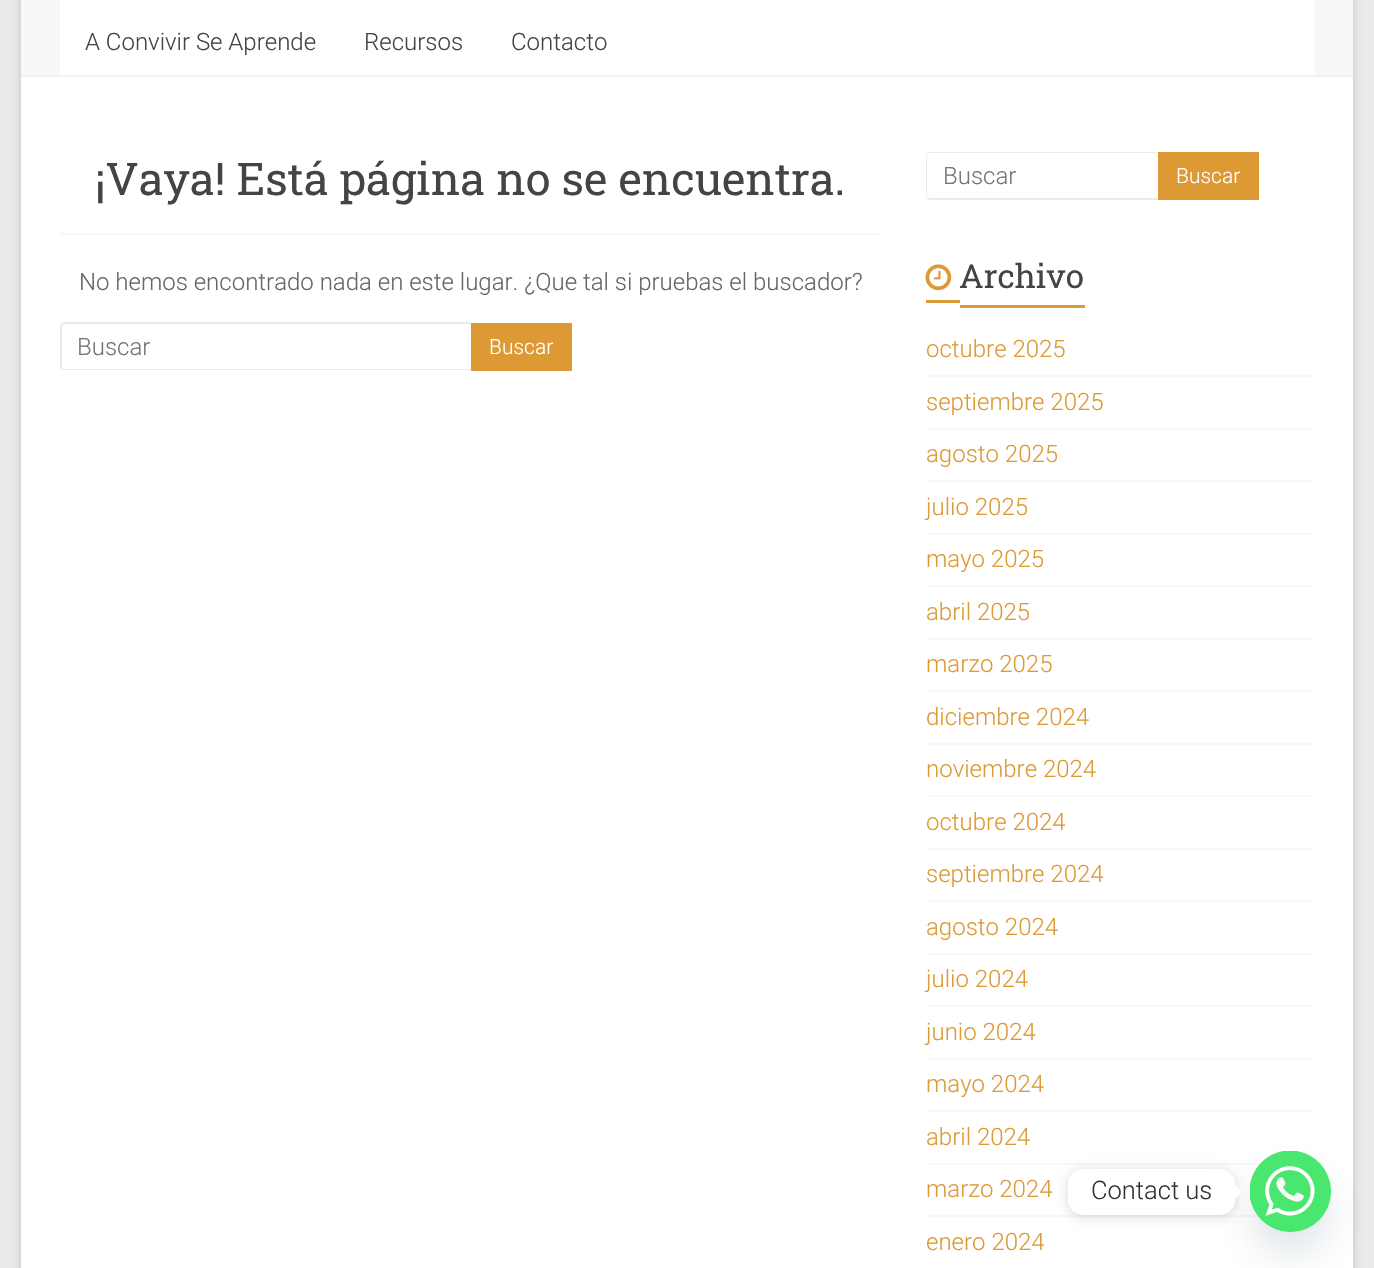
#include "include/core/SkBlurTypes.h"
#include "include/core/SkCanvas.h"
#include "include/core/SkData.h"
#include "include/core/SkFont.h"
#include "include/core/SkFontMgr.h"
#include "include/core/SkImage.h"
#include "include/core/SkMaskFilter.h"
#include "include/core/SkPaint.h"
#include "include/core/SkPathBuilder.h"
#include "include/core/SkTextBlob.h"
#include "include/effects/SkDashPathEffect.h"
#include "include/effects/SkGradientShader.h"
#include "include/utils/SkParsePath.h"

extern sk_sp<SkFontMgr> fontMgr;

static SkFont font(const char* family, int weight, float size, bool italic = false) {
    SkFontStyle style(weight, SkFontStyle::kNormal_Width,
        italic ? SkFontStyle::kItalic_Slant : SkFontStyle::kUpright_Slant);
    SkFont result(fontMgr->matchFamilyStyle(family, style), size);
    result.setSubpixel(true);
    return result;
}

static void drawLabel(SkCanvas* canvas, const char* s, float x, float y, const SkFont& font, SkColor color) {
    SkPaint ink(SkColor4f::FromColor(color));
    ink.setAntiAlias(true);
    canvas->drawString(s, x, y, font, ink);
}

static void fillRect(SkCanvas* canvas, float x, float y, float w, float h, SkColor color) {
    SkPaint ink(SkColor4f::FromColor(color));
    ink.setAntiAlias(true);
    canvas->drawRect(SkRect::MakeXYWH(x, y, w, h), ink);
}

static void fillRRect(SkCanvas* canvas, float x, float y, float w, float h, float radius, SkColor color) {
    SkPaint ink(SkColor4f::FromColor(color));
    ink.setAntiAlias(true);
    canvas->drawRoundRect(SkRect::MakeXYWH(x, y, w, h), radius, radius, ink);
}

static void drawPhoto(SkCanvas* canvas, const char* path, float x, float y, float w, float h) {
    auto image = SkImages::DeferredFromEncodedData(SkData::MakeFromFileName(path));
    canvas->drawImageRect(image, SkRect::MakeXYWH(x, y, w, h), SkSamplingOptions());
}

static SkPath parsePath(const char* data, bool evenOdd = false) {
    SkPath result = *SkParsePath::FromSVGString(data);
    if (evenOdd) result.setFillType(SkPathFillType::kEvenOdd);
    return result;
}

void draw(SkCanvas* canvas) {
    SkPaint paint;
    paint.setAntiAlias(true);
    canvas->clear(0xFFEAEAEA);
    paint.setColor(0x4D646464);
    paint.setMaskFilter(SkMaskFilter::MakeBlur(kNormal_SkBlurStyle, 4.5f));
    canvas->drawRect(SkRect::MakeXYWH(21, -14, 1332, 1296), paint);
    paint.setMaskFilter(nullptr);
    fillRect(canvas, 21, 77, 1332, 1191, 0xFFFFFFFF);
    fillRect(canvas, 21, 0, 1332, 75, 0xFFF8F8F8);
    fillRect(canvas, 21, 75, 1332, 2, 0xFFF2F2F2);
    fillRect(canvas, 60, 0, 1254, 75, 0xFFFFFFFF);
    SkFont font1 = font("Roboto", 300, 24);
    drawLabel(canvas, "A Convivir Se Aprende", 85, 50, font1, 0xFF444444);
    drawLabel(canvas, "Recursos", 364, 50, font1, 0xFF444444);
    drawLabel(canvas, "Contacto", 511, 50, font1, 0xFF444444);
    fillRect(canvas, 60, 233, 821, 2, 0xFFF8F8F8);
    SkFont font2 = font("Roboto Slab", 400, 45);
    drawLabel(canvas, "¡Vaya! Está página no se encuentra.", 95, 195, font2, 0xFF444444);
    drawLabel(canvas, "No hemos encontrado nada en este lugar. ¿Que tal si pruebas el buscador?", 79, 290, font1, 0xFF666666);
    paint.setColor(0xFFEAEAEA);
    canvas->drawPath(parsePath("M64 322H471V370H64C62 370 60 368 60 366V327C60 325 62 322 64 322ZM64 324H471V369H64C63 369 62 368 62 366V327C62 325 63 324 64 324Z", true), paint);
    drawLabel(canvas, "Buscar", 77, 355, font1, 0xFF757575);
    fillRect(canvas, 471, 323, 101, 48, 0xFFDD9933);
    SkFont font3 = font("Roboto", 300, 21);
    drawLabel(canvas, "Buscar", 489, 354, font3, 0xFFFFFFFF);
    canvas->drawPath(parsePath("M930 152H1158V200H930C928 200 926 197 926 195V156C926 154 928 152 930 152ZM930 153H1158V198H930C928 198 927 197 927 195V156C927 154 928 153 930 153Z", true), paint);
    drawLabel(canvas, "Buscar", 943, 184, font1, 0xFF757575);
    fillRect(canvas, 1158, 152, 101, 48, 0xFFDD9933);
    drawLabel(canvas, "Buscar", 1176, 183, font3, 0xFFFFFFFF);
    drawPhoto(canvas, "assets/img1.png", 925, 264, 27, 27);
    SkFont font4 = font("Roboto Slab", 400, 33);
    drawLabel(canvas, "Archivo", 959, 288, font4, 0xFF444444);
    fillRect(canvas, 926, 300, 34, 3, 0xFFDD9933);
    fillRect(canvas, 960, 305, 125, 3, 0xFFDD9933);
    fillRect(canvas, 926, 375, 388, 2, 0xFFF8F8F8);
    drawLabel(canvas, "octubre 2025", 926, 357, font1, 0xFFDD9933);
    fillRect(canvas, 926, 428, 388, 2, 0xFFF8F8F8);
    drawLabel(canvas, "septiembre 2025", 926, 410, font1, 0xFFDD9933);
    fillRect(canvas, 926, 480, 388, 2, 0xFFF8F8F8);
    drawLabel(canvas, "agosto 2025", 926, 462, font1, 0xFFDD9933);
    fillRect(canvas, 926, 533, 388, 2, 0xFFF8F8F8);
    drawLabel(canvas, "julio 2025", 926, 515, font1, 0xFFDD9933);
    fillRect(canvas, 926, 585, 388, 2, 0xFFF8F8F8);
    drawLabel(canvas, "mayo 2025", 926, 567, font1, 0xFFDD9933);
    fillRect(canvas, 926, 638, 388, 2, 0xFFF8F8F8);
    drawLabel(canvas, "abril 2025", 926, 620, font1, 0xFFDD9933);
    fillRect(canvas, 926, 690, 388, 2, 0xFFF8F8F8);
    drawLabel(canvas, "marzo 2025", 926, 672, font1, 0xFFDD9933);
    fillRect(canvas, 926, 743, 388, 2, 0xFFF8F8F8);
    drawLabel(canvas, "diciembre 2024", 926, 725, font1, 0xFFDD9933);
    fillRect(canvas, 926, 795, 388, 2, 0xFFF8F8F8);
    drawLabel(canvas, "noviembre 2024", 926, 777, font1, 0xFFDD9933);
    fillRect(canvas, 926, 848, 388, 2, 0xFFF8F8F8);
    drawLabel(canvas, "octubre 2024", 926, 830, font1, 0xFFDD9933);
    fillRect(canvas, 926, 900, 388, 2, 0xFFF8F8F8);
    drawLabel(canvas, "septiembre 2024", 926, 882, font1, 0xFFDD9933);
    fillRect(canvas, 926, 953, 388, 2, 0xFFF8F8F8);
    drawLabel(canvas, "agosto 2024", 926, 935, font1, 0xFFDD9933);
    fillRect(canvas, 926, 1005, 388, 2, 0xFFF8F8F8);
    drawLabel(canvas, "julio 2024", 926, 987, font1, 0xFFDD9933);
    fillRect(canvas, 926, 1058, 388, 2, 0xFFF8F8F8);
    drawLabel(canvas, "junio 2024", 926, 1040, font1, 0xFFDD9933);
    fillRect(canvas, 926, 1110, 388, 2, 0xFFF8F8F8);
    drawLabel(canvas, "mayo 2024", 926, 1092, font1, 0xFFDD9933);
    fillRect(canvas, 926, 1163, 335, 2, 0xFFF8F8F8);
    drawLabel(canvas, "abril 2024", 926, 1145, font1, 0xFFDD9933);
    fillRect(canvas, 926, 1215, 333, 2, 0xFFF8F8F8);
    drawLabel(canvas, "marzo 2024", 926, 1197, font1, 0xFFDD9933);
    drawLabel(canvas, "enero 2024", 926, 1250, font1, 0xFFDD9933);
    paint.setColor(0x2949687E);
    paint.setMaskFilter(SkMaskFilter::MakeBlur(kNormal_SkBlurStyle, 18));
    canvas->drawRoundRect(SkRect::MakeXYWH(1250, 1175, 81, 81), 40.5f, 40.5f, paint);
    paint.setMaskFilter(nullptr);
    paint.setColor(0xFF49E670);
    canvas->drawCircle(1290.5f, 1191.5f, 40.5f, paint);
    drawPhoto(canvas, "assets/img2.png", 1250, 1151, 81, 81);
    paint.setColor(0x26000000);
    paint.setMaskFilter(SkMaskFilter::MakeBlur(kNormal_SkBlurStyle, 6));
    canvas->drawRoundRect(SkRect::MakeXYWH(1068, 1170, 167, 47), 15, 15, paint);
    paint.setMaskFilter(nullptr);
    fillRRect(canvas, 1068, 1169, 167, 46, 15, 0xFFFFFFFF);
    SkFont font5 = font("Roboto", 300, 25.5f);
    drawLabel(canvas, "Contact us", 1091, 1199, font5, 0xFF333333);
    paint.setColor(0xFFFFFFFF);
    canvas->drawPath(parsePath("M1234.5 1199V1184L1242 1192Z"), paint);
}
